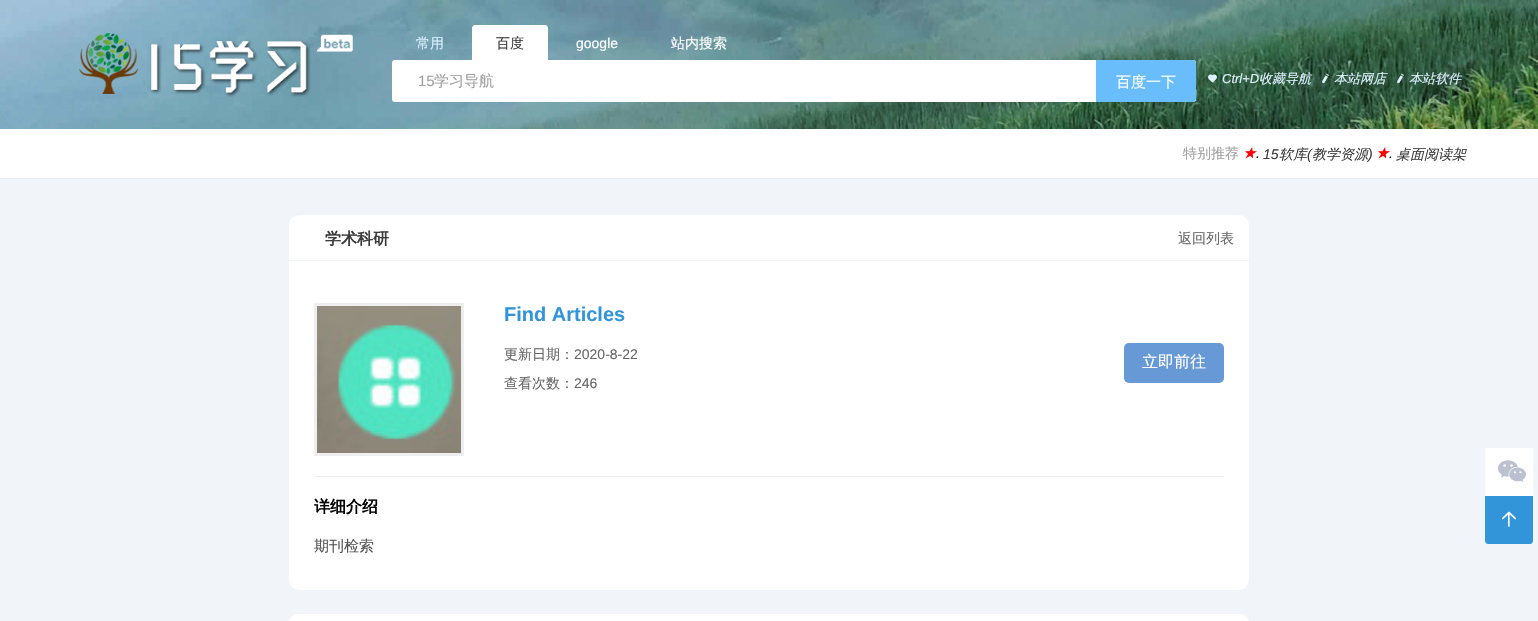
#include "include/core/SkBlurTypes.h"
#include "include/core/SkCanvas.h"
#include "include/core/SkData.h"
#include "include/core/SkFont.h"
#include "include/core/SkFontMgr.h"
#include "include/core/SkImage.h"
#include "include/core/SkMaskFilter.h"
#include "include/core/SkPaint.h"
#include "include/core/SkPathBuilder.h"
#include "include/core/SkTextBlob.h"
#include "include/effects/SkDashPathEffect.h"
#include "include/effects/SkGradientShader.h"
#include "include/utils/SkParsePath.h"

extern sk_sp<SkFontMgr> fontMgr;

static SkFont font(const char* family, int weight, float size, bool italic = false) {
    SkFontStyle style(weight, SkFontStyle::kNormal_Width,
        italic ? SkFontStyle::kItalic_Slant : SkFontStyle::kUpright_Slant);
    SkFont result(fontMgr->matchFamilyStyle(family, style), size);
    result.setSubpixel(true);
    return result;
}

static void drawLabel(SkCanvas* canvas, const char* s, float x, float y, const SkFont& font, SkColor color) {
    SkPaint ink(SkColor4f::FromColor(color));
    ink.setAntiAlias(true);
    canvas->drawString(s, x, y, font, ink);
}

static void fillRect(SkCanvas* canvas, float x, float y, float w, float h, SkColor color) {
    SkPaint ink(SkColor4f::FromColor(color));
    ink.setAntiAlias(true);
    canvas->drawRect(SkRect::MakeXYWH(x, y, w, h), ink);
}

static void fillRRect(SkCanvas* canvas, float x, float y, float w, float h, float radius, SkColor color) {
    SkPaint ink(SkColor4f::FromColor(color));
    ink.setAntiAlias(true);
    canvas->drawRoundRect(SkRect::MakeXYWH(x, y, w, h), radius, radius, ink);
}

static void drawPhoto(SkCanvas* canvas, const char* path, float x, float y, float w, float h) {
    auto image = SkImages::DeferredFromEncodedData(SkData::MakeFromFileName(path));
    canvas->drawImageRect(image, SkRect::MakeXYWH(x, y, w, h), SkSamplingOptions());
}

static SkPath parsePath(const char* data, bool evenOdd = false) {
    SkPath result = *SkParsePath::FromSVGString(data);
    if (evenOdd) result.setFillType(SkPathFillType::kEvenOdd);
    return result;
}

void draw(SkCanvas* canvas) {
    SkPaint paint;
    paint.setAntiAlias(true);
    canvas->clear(0xFFF1F4F9);
    drawPhoto(canvas, "assets/img1.png", 0, 0, 1538, 129);
    drawPhoto(canvas, "assets/img2.png", 79, 33, 274, 64);
    SkFont font1 = font("WenQuanYi Zen Hei", 500, 14);
    drawLabel(canvas, "常用", 416, 48, font1, 0xFFD9EFFF);
    paint.setColor(0xFFFFFFFF);
    canvas->drawPath(parsePath("M475 25H545C546.5 25 548 26.5 548 28V61H472V28C472 26.5 473.5 25 475 25Z"), paint);
    drawLabel(canvas, "百度", 496, 48, font1, 0xFF3C3C3C);
    SkFont font2 = font("Liberation Sans", 400, 14);
    drawLabel(canvas, "google", 576, 48, font2, 0xFFFFFFFF);
    drawLabel(canvas, "站内搜索", 671, 48, font1, 0xFFFFFFFF);
    fillRRect(canvas, 392, 60, 804, 42, 3, 0xFFFFFFFF);
    SkFont font3 = font("Liberation Sans", 400, 15);
    drawLabel(canvas, "15", 418, 86, font3, 0xFFA0A0A0);
    SkFont font4 = font("WenQuanYi Zen Hei", 500, 15);
    drawLabel(canvas, "学习导航", 434, 86, font4, 0xFFA0A0A0);
    paint.setColor(0xFF69BDFB);
    canvas->drawPath(parsePath("M1096 60H1193C1194.5 60 1196 61.5 1196 63V99C1196 100.5 1194.5 102 1193 102H1096Z"), paint);
    drawLabel(canvas, "百度一下", 1116, 87, font4, 0xFFFFFFFF);
    drawPhoto(canvas, "assets/img3.png", 1208, 74, 9, 9);
    SkFont font5 = font("Liberation Sans", 400, 13, true);
    drawLabel(canvas, "Ctrl+D", 1222, 83, font5, 0xFFDFF2FF);
    SkFont font6 = font("WenQuanYi Zen Hei", 500, 13, true);
    drawLabel(canvas, "收藏导航", 1259, 83, font6, 0xFFDFF2FF);
    drawPhoto(canvas, "assets/img4.png", 1322, 73, 7, 11);
    drawLabel(canvas, "本站网店", 1334, 83, font6, 0xFFDFF2FF);
    drawPhoto(canvas, "assets/img5.png", 1397, 73, 7, 11);
    drawLabel(canvas, "本站软件", 1409, 83, font6, 0xFFDFF2FF);
    fillRect(canvas, 0, 129, 1538, 49, 0xFFFFFFFF);
    fillRect(canvas, 0, 178, 1538, 1, 0xFFE9EEF5);
    drawLabel(canvas, "特别推荐", 1183, 158, font1, 0xFFA0A0A0);
    SkFont font7 = font("DejaVu Sans", 700, 14, true);
    drawLabel(canvas, "★", 1243, 158, font7, 0xFFFF0000);
    SkFont font8 = font("WenQuanYi Zen Hei", 500, 14, true);
    drawLabel(canvas, "软库", 1279, 159, font8, 0xFF3C3C3C);
    SkFont font9 = font("Liberation Sans", 400, 14, true);
    drawLabel(canvas, "(", 1307, 159, font9, 0xFF3C3C3C);
    drawLabel(canvas, "教学资源", 1312, 159, font8, 0xFF3C3C3C);
    drawLabel(canvas, "15", 1263, 159, font9, 0xFF3C3C3C);
    drawLabel(canvas, ")", 1368, 159, font9, 0xFF3C3C3C);
    drawLabel(canvas, ".", 1256, 158, font9, 0xFF000000);
    drawLabel(canvas, "★", 1376, 158, font7, 0xFFFF0000);
    drawLabel(canvas, "桌面阅读架", 1396, 159, font8, 0xFF3C3C3C);
    drawLabel(canvas, ".", 1389, 158, font9, 0xFF000000);
    fillRRect(canvas, 289, 215, 960, 375, 10, 0xFFFFFFFF);
    fillRect(canvas, 289, 260, 960, 1, 0xFFF1F4F9);
    SkFont font10 = font("WenQuanYi Zen Hei", 700, 16);
    drawLabel(canvas, "学术科研", 325, 244, font10, 0xFF3C3C3C);
    drawLabel(canvas, "返回列表", 1178, 243, font1, 0xFF666666);
    fillRect(canvas, 314, 303, 150, 153, 0xFFEEEEEE);
    drawPhoto(canvas, "assets/img6.png", 317, 306, 144, 147);
    SkFont font11 = font("Liberation Sans", 700, 20);
    drawLabel(canvas, "Find Articles", 504, 321, font11, 0xFF3295D9);
    drawLabel(canvas, "更新日期：", 504, 359, font1, 0xFF666666);
    drawLabel(canvas, "2020-8-22", 574, 359, font2, 0xFF666666);
    drawLabel(canvas, "查看次数：", 504, 388, font1, 0xFF666666);
    drawLabel(canvas, "246", 574, 388, font2, 0xFF666666);
    fillRRect(canvas, 1124, 343, 100, 40, 5, 0xFF6699D5);
    SkFont font12 = font("WenQuanYi Zen Hei", 500, 16);
    drawLabel(canvas, "立即前往", 1142, 367, font12, 0xFFFFFFFF);
    fillRect(canvas, 314, 476, 910, 1, 0xFFEEEEEE);
    drawLabel(canvas, "详细介绍", 314, 512, font10, 0xFF000000);
    drawLabel(canvas, "期刊检索", 314, 551, font4, 0xFF555555);
    fillRRect(canvas, 289, 614, 960, 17, 10, 0xFFFFFFFF);
    fillRect(canvas, 1485, 448, 48, 48, 0xFFFFFFFF);
    drawPhoto(canvas, "assets/img7.png", 1498, 460, 28, 22);
    paint.setColor(0xFF3295D9);
    canvas->drawPath(parsePath("M1485 496H1533V541C1533 542.5 1531.5 544 1530 544H1488C1486.5 544 1485 542.5 1485 541Z"), paint);
    drawPhoto(canvas, "assets/img8.png", 1501, 511, 16, 16);
}
